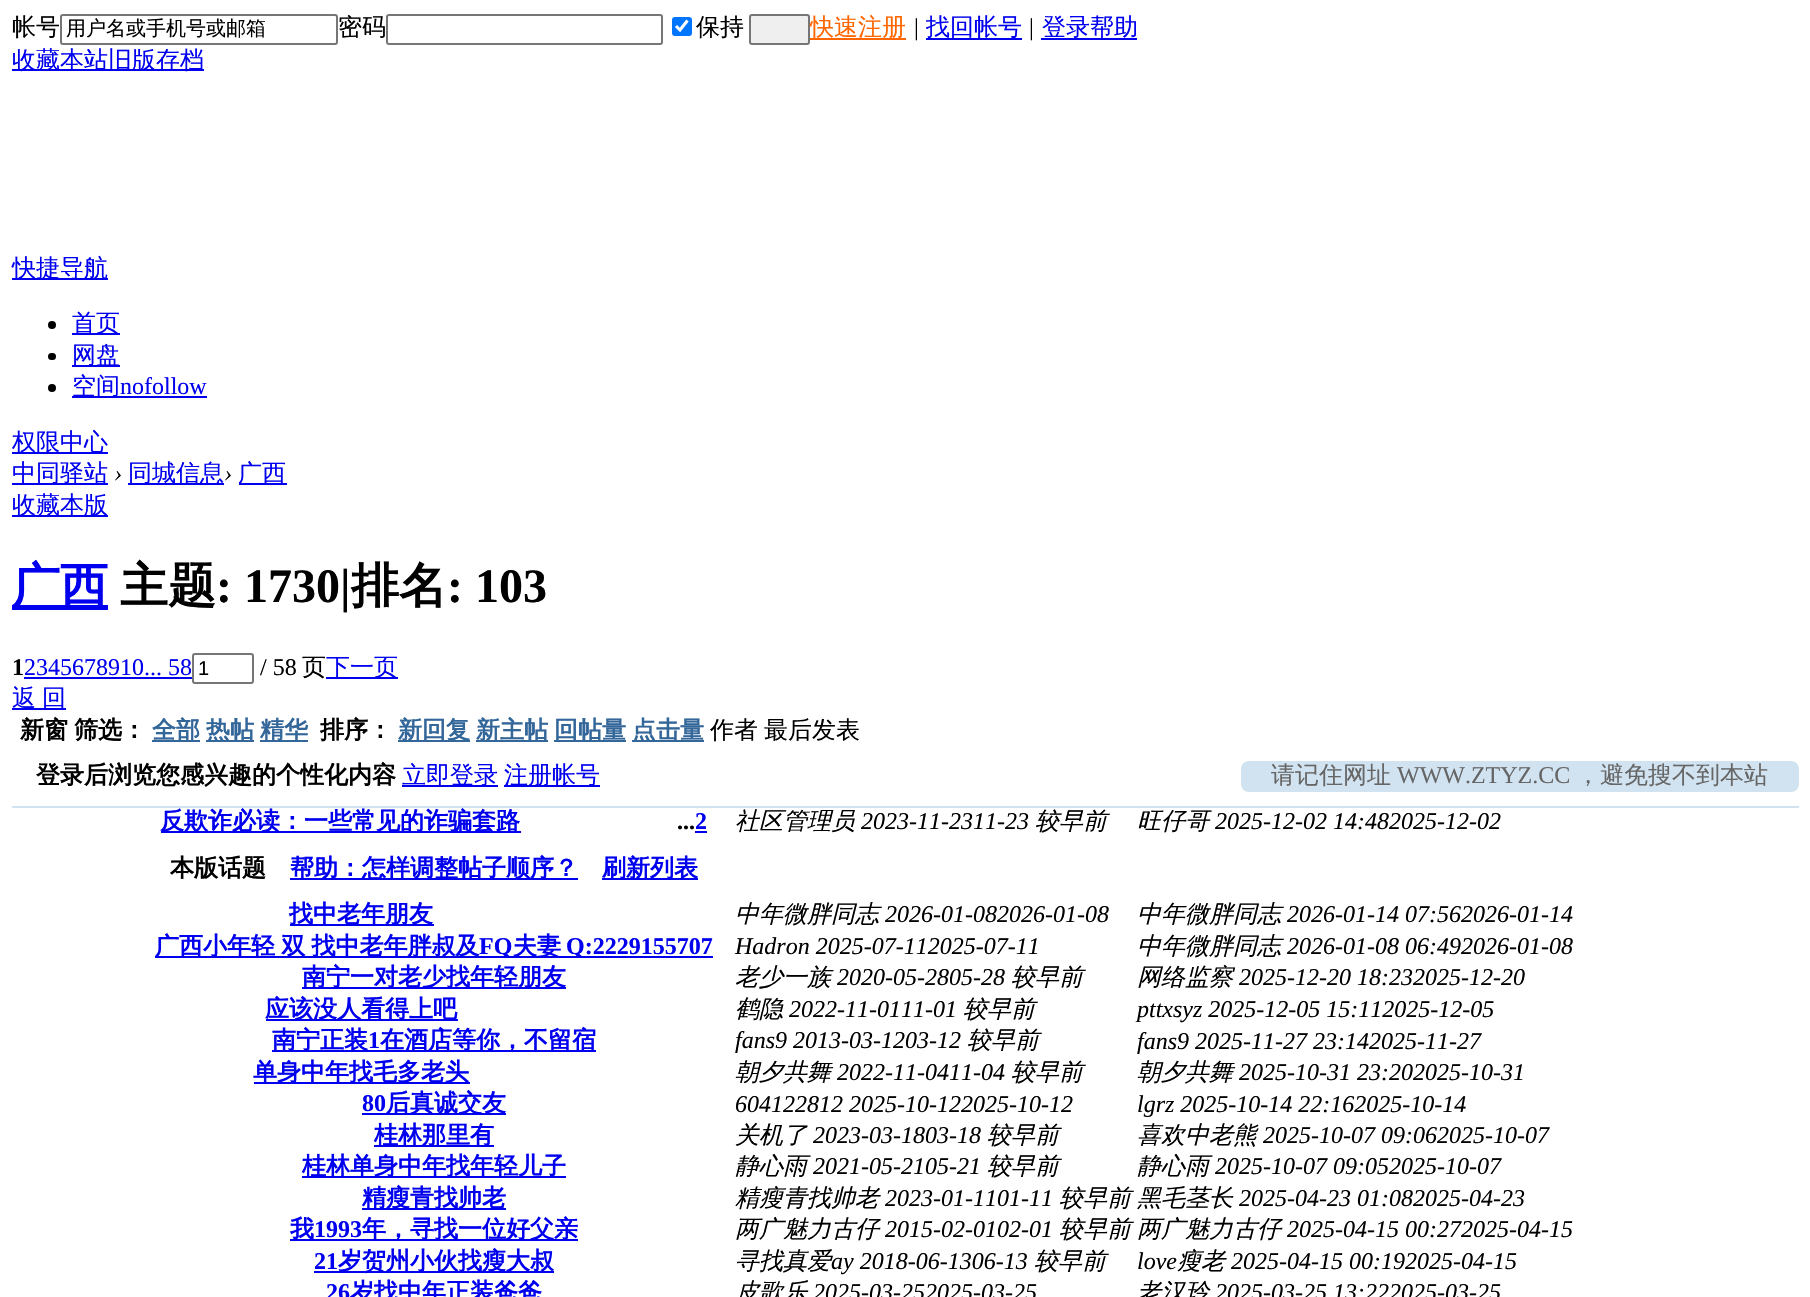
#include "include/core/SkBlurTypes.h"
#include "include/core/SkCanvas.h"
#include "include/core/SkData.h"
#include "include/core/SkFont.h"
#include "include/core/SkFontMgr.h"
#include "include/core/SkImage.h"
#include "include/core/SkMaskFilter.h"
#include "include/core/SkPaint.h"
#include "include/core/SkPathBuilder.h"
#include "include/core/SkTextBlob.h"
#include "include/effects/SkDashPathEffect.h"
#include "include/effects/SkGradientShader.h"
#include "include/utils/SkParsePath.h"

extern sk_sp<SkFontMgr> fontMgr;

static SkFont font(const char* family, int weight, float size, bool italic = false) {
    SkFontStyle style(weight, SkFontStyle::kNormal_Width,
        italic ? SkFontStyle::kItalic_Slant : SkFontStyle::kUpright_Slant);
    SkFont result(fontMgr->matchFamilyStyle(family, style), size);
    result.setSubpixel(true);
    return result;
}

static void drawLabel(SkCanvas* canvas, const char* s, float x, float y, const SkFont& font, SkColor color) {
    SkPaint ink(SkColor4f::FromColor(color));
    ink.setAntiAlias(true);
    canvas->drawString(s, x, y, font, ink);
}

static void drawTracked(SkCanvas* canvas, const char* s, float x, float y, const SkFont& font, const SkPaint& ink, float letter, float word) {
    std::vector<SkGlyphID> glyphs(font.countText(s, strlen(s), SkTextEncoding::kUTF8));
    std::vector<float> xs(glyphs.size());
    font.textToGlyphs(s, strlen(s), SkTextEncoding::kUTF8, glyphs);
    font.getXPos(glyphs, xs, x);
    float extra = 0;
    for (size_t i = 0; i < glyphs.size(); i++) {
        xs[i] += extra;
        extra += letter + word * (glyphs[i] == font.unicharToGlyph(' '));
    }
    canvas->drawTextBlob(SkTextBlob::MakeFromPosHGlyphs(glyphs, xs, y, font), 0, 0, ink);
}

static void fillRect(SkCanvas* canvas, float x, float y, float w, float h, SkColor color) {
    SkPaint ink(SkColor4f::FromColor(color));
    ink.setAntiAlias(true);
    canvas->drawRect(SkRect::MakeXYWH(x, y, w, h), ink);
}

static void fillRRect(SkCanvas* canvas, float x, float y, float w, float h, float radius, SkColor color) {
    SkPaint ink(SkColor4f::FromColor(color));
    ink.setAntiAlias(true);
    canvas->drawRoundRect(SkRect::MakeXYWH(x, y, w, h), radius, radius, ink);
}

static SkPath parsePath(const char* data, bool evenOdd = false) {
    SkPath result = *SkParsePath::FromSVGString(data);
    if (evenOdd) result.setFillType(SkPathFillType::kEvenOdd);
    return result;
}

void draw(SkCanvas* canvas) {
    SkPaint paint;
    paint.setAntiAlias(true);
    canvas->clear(0xFFFFFFFF);
    SkFont font1 = font("WenQuanYi Zen Hei", 500, 24);
    drawLabel(canvas, "帐号", 12, 35, font1, 0xFF000000);
    paint.setStroke(true);
    paint.setStrokeWidth(2);
    paint.setColor(0xFF767676);
    canvas->drawRoundRect(SkRect::MakeXYWH(61, 15, 276, 29), 2, 2, paint);
    SkFont font2 = font("WenQuanYi Zen Hei", 500, 20);
    drawLabel(canvas, "用户名或手机号或邮箱", 66, 35, font2, 0xFF000000);
    drawLabel(canvas, "密码", 338, 35, font1, 0xFF000000);
    canvas->drawRoundRect(SkRect::MakeXYWH(387, 15, 275, 29), 2, 2, paint);
    fillRRect(canvas, 672, 17, 20, 19, 3, 0xFF0075FF);
    paint.setStrokeWidth(3.1f);
    paint.setColor(0xFFFFFFFF);
    canvas->drawPath(parsePath("M676 26L680 30L687.5 20.5"), paint);
    drawLabel(canvas, "保持", 696, 35, font1, 0xFF000000);
    paint.setStroke(false);
    paint.setColor(0xFFEFEFEF);
    canvas->drawRoundRect(SkRect::MakeXYWH(750, 15, 59, 29), 2, 2, paint);
    paint.setStroke(true);
    paint.setStrokeWidth(2);
    paint.setColor(0xFF767676);
    canvas->drawRoundRect(SkRect::MakeXYWH(750, 15, 59, 29), 2, 2, paint);
    fillRect(canvas, 810, 38, 96, 2, 0xFFFF6600);
    drawLabel(canvas, "快速注册", 810, 35, font1, 0xFFFF6600);
    SkFont font3 = font("Liberation Serif", 400, 24);
    drawLabel(canvas, "|", 914, 35, font3, 0xFF000000);
    fillRect(canvas, 926, 38, 96, 2, 0xFF0000EE);
    drawLabel(canvas, "找回帐号", 926, 35, font1, 0xFF0000EE);
    drawLabel(canvas, "|", 1029, 35, font3, 0xFF000000);
    fillRect(canvas, 1041, 38, 96, 2, 0xFF0000EE);
    drawLabel(canvas, "登录帮助", 1042, 35, font1, 0xFF0000EE);
    fillRect(canvas, 12, 69, 192, 2, 0xFF0000EE);
    drawLabel(canvas, "收藏本站旧版存档", 12, 68, font1, 0xFF0000EE);
    fillRect(canvas, 12, 278, 96, 2, 0xFF0000EE);
    drawLabel(canvas, "快捷导航", 12, 276, font1, 0xFF0000EE);
    paint.setStroke(false);
    paint.setColor(0xFF000000);
    canvas->drawCircle(52, 325, 4, paint);
    fillRect(canvas, 72, 333, 48, 2, 0xFF0000EE);
    drawLabel(canvas, "首页", 72, 331, font1, 0xFF0000EE);
    fillRRect(canvas, 48, 353, 8, 7, 3.5f, 0xFF000000);
    fillRect(canvas, 72, 365, 48, 2, 0xFF0000EE);
    drawLabel(canvas, "网盘", 72, 363, font1, 0xFF0000EE);
    canvas->drawCircle(52, 388, 4, paint);
    fillRect(canvas, 72, 396, 135, 2, 0xFF0000EE);
    drawLabel(canvas, "空间", 72, 394, font1, 0xFF0000EE);
    drawLabel(canvas, "nofollow", 120, 394, font3, 0xFF0000EE);
    fillRect(canvas, 12, 452, 96, 2, 0xFF0000EE);
    drawLabel(canvas, "权限中心", 12, 450, font1, 0xFF0000EE);
    fillRect(canvas, 12, 483, 96, 2, 0xFF0000EE);
    drawLabel(canvas, "中同驿站", 12, 481, font1, 0xFF0000EE);
    SkFont font4 = font("Liberation Serif", 400, 24, true);
    drawLabel(canvas, "›", 114, 481, font4, 0xFF000000);
    fillRect(canvas, 128, 483, 96, 2, 0xFF0000EE);
    drawLabel(canvas, "同城信息", 128, 481, font1, 0xFF0000EE);
    drawLabel(canvas, "›", 224, 481, font4, 0xFF000000);
    fillRect(canvas, 239, 483, 48, 2, 0xFF0000EE);
    drawLabel(canvas, "广西", 238, 481, font1, 0xFF0000EE);
    fillRect(canvas, 12, 515, 96, 2, 0xFF0000EE);
    drawLabel(canvas, "收藏本版", 12, 513, font1, 0xFF0000EE);
    fillRect(canvas, 12, 605, 96, 5, 0xFF0000EE);
    SkFont font5 = font("WenQuanYi Zen Hei", 700, 48);
    drawLabel(canvas, "广西", 12, 602, font5, 0xFF0000EE);
    drawLabel(canvas, "主题", 120, 602, font5, 0xFF000000);
    SkFont font6 = font("Liberation Serif", 700, 48);
    drawLabel(canvas, ": 1730|", 216, 602, font6, 0xFF000000);
    drawLabel(canvas, "排名", 351, 602, font5, 0xFF000000);
    drawLabel(canvas, ": 103", 447, 602, font6, 0xFF000000);
    SkFont font7 = font("Liberation Serif", 700, 24);
    drawLabel(canvas, "1", 12, 675, font7, 0xFF000000);
    drawLabel(canvas, "2345678910... 58", 24, 675, font3, 0xFF0000EE);
    fillRect(canvas, 24, 677, 168, 2, 0xFF0000EE);
    paint.setStroke(true);
    paint.setColor(0xFF767676);
    canvas->drawRoundRect(SkRect::MakeXYWH(193, 654, 60, 29), 2, 2, paint);
    SkFont font8 = font("Liberation Sans", 400, 20);
    drawLabel(canvas, "1", 198, 675, font8, 0xFF000000);
    drawLabel(canvas, "/ 58", 260, 675, font3, 0xFF000000);
    drawLabel(canvas, "页", 302, 675, font1, 0xFF000000);
    fillRect(canvas, 326, 677, 72, 2, 0xFF0000EE);
    drawLabel(canvas, "下一页", 326, 675, font1, 0xFF0000EE);
    fillRect(canvas, 12, 708, 54, 2, 0xFF0000EE);
    drawLabel(canvas, "返", 12, 706, font1, 0xFF0000EE);
    drawLabel(canvas, "回", 42, 706, font1, 0xFF0000EE);
    SkFont font9 = font("WenQuanYi Zen Hei", 700, 24);
    drawLabel(canvas, "新窗", 20, 738, font9, 0xFF000000);
    drawLabel(canvas, "筛选：", 74, 738, font9, 0xFF000000);
    fillRect(canvas, 152, 740, 48, 2, 0xFF336699);
    drawLabel(canvas, "全部", 152, 738, font9, 0xFF336699);
    fillRect(canvas, 206, 740, 48, 2, 0xFF336699);
    drawLabel(canvas, "热帖", 206, 738, font9, 0xFF336699);
    fillRect(canvas, 260, 740, 48, 2, 0xFF336699);
    drawLabel(canvas, "精华", 260, 738, font9, 0xFF336699);
    drawLabel(canvas, "排序：", 320, 738, font9, 0xFF000000);
    fillRect(canvas, 398, 740, 72, 2, 0xFF336699);
    drawLabel(canvas, "新回复", 398, 738, font9, 0xFF336699);
    fillRect(canvas, 476, 740, 72, 2, 0xFF336699);
    drawLabel(canvas, "新主帖", 476, 738, font9, 0xFF336699);
    fillRect(canvas, 554, 740, 72, 2, 0xFF336699);
    drawLabel(canvas, "回帖量", 554, 738, font9, 0xFF336699);
    fillRect(canvas, 632, 740, 72, 2, 0xFF336699);
    drawLabel(canvas, "点击量", 632, 738, font9, 0xFF336699);
    drawLabel(canvas, "作者", 710, 738, font1, 0xFF000000);
    drawLabel(canvas, "最后发表", 764, 738, font1, 0xFF000000);
    fillRect(canvas, 12, 806, 1787, 2, 0xFFD1E3F0);
    drawLabel(canvas, "登录后浏览您感兴趣的个性化内容", 36, 783, font9, 0xFF000000);
    fillRect(canvas, 402, 785, 96, 2, 0xFF0000EE);
    drawLabel(canvas, "立即登录", 402, 783, font1, 0xFF0000EE);
    fillRect(canvas, 504, 785, 96, 2, 0xFF0000EE);
    drawLabel(canvas, "注册帐号", 504, 783, font1, 0xFF0000EE);
    fillRRect(canvas, 1241, 761, 558, 31, 8, 0xFFD1E3F0);
    drawLabel(canvas, "请记住网址", 1271, 783, font1, 0xFF666666);
    drawLabel(canvas, "WWW.ZTYZ.CC", 1397, 783, font3, 0xFF666666);
    drawLabel(canvas, "，避免搜不到本站", 1576, 783, font1, 0xFF666666);
    fillRect(canvas, 161, 831, 360, 2, 0xFF0000EE);
    drawLabel(canvas, "反欺诈必读：一些常见的诈骗套路", 160, 829, font9, 0xFF0000EE);
    drawLabel(canvas, "...", 677, 829, font7, 0xFF000000);
    fillRect(canvas, 695, 831, 12, 2, 0xFF0000EE);
    drawLabel(canvas, "2", 695, 829, font7, 0xFF0000EE);
    SkFont font10 = font("WenQuanYi Zen Hei", 500, 24, true);
    drawLabel(canvas, "社区管理员", 735, 829, font10, 0xFF000000);
    drawLabel(canvas, "2023-11-2311-23", 861, 829, font4, 0xFF000000);
    drawLabel(canvas, "较早前", 1035, 829, font10, 0xFF000000);
    drawLabel(canvas, "旺仔哥", 1137, 829, font10, 0xFF000000);
    drawLabel(canvas, "2025-12-02 14:482025-12-02", 1215, 829, font4, 0xFF000000);
    drawLabel(canvas, "本版话题", 170, 876, font9, 0xFF000000);
    fillRect(canvas, 290, 878, 288, 2, 0xFF0000EE);
    drawLabel(canvas, "帮助：怎样调整帖子顺序？", 290, 876, font9, 0xFF0000EE);
    fillRect(canvas, 602, 878, 96, 2, 0xFF0000EE);
    drawLabel(canvas, "刷新列表", 602, 876, font9, 0xFF0000EE);
    fillRect(canvas, 290, 924, 144, 2, 0xFF0000EE);
    drawLabel(canvas, "找中老年朋友", 289, 922, font9, 0xFF0000EE);
    drawLabel(canvas, "中年微胖同志", 735, 922, font10, 0xFF000000);
    drawLabel(canvas, "2026-01-082026-01-08", 885, 922, font4, 0xFF000000);
    drawLabel(canvas, "中年微胖同志", 1137, 922, font10, 0xFF000000);
    drawLabel(canvas, "2026-01-14 07:562026-01-14", 1287, 922, font4, 0xFF000000);
    fillRect(canvas, 155, 956, 558, 2, 0xFF0000EE);
    paint.setStroke(false);
    paint.setColor(0xFF0000EE);
    drawTracked(canvas, "广西小年轻 双 找中老年胖叔及", 155, 954, font9, paint, 0, -1);
    drawLabel(canvas, "FQ", 479, 954, font7, 0xFF0000EE);
    drawLabel(canvas, "夫妻", 513, 954, font9, 0xFF0000EE);
    drawLabel(canvas, "Q:2229155707", 566, 954, font7, 0xFF0000EE);
    drawLabel(canvas, "Hadron 2025-07-112025-07-11", 735, 954, font4, 0xFF000000);
    drawLabel(canvas, "中年微胖同志", 1137, 954, font10, 0xFF000000);
    drawLabel(canvas, "2026-01-08 06:492026-01-08", 1287, 954, font4, 0xFF000000);
    fillRect(canvas, 302, 987, 264, 2, 0xFF0000EE);
    drawLabel(canvas, "南宁一对老少找年轻朋友", 302, 985, font9, 0xFF0000EE);
    drawLabel(canvas, "老少一族", 735, 985, font10, 0xFF000000);
    drawLabel(canvas, "2020-05-2805-28", 837, 985, font4, 0xFF000000);
    drawLabel(canvas, "较早前", 1011, 985, font10, 0xFF000000);
    drawLabel(canvas, "网络监察", 1137, 985, font10, 0xFF000000);
    drawLabel(canvas, "2025-12-20 18:232025-12-20", 1239, 985, font4, 0xFF000000);
    fillRect(canvas, 266, 1019, 192, 2, 0xFF0000EE);
    drawLabel(canvas, "应该没人看得上吧", 265, 1017, font9, 0xFF0000EE);
    drawLabel(canvas, "鹤隐", 735, 1017, font10, 0xFF000000);
    drawLabel(canvas, "2022-11-0111-01", 789, 1017, font4, 0xFF000000);
    drawLabel(canvas, "较早前", 963, 1017, font10, 0xFF000000);
    drawLabel(canvas, "pttxsyz 2025-12-05 15:112025-12-05", 1137, 1017, font4, 0xFF000000);
    fillRect(canvas, 272, 1050, 324, 2, 0xFF0000EE);
    drawLabel(canvas, "南宁正装", 272, 1048, font9, 0xFF0000EE);
    drawLabel(canvas, "1", 368, 1048, font7, 0xFF0000EE);
    drawLabel(canvas, "在酒店等你，不留宿", 380, 1048, font9, 0xFF0000EE);
    drawLabel(canvas, "fans9 2013-03-1203-12", 735, 1048, font4, 0xFF000000);
    drawLabel(canvas, "较早前", 967, 1048, font10, 0xFF000000);
    drawLabel(canvas, "fans9 2025-11-27 23:142025-11-27", 1137, 1049, font4, 0xFF000000);
    fillRect(canvas, 254, 1082, 216, 2, 0xFF0000EE);
    drawLabel(canvas, "单身中年找毛多老头", 253, 1080, font9, 0xFF0000EE);
    drawLabel(canvas, "朝夕共舞", 735, 1080, font10, 0xFF000000);
    drawLabel(canvas, "2022-11-0411-04", 837, 1080, font4, 0xFF000000);
    drawLabel(canvas, "较早前", 1011, 1080, font10, 0xFF000000);
    drawLabel(canvas, "朝夕共舞", 1137, 1080, font10, 0xFF000000);
    drawLabel(canvas, "2025-10-31 23:202025-10-31", 1239, 1080, font4, 0xFF000000);
    drawLabel(canvas, "80", 362, 1111, font7, 0xFF0000EE);
    fillRect(canvas, 362, 1113, 144, 2, 0xFF0000EE);
    drawLabel(canvas, "后真诚交友", 386, 1111, font9, 0xFF0000EE);
    drawLabel(canvas, "604122812 2025-10-122025-10-12", 735, 1112, font4, 0xFF000000);
    drawLabel(canvas, "lgrz 2025-10-14 22:162025-10-14", 1137, 1112, font4, 0xFF000000);
    fillRect(canvas, 374, 1145, 120, 2, 0xFF0000EE);
    drawLabel(canvas, "桂林那里有", 374, 1143, font9, 0xFF0000EE);
    drawLabel(canvas, "关机了", 735, 1143, font10, 0xFF000000);
    drawLabel(canvas, "2023-03-1803-18", 813, 1143, font4, 0xFF000000);
    drawLabel(canvas, "较早前", 987, 1143, font10, 0xFF000000);
    drawLabel(canvas, "喜欢中老熊", 1137, 1143, font10, 0xFF000000);
    drawLabel(canvas, "2025-10-07 09:062025-10-07", 1263, 1143, font4, 0xFF000000);
    fillRect(canvas, 302, 1176, 264, 2, 0xFF0000EE);
    drawLabel(canvas, "桂林单身中年找年轻儿子", 302, 1174, font9, 0xFF0000EE);
    drawLabel(canvas, "静心雨", 735, 1174, font10, 0xFF000000);
    drawLabel(canvas, "2021-05-2105-21", 813, 1174, font4, 0xFF000000);
    drawLabel(canvas, "较早前", 987, 1174, font10, 0xFF000000);
    drawLabel(canvas, "静心雨", 1137, 1174, font10, 0xFF000000);
    drawLabel(canvas, "2025-10-07 09:052025-10-07", 1215, 1174, font4, 0xFF000000);
    fillRect(canvas, 362, 1208, 144, 2, 0xFF0000EE);
    drawLabel(canvas, "精瘦青找帅老", 362, 1206, font9, 0xFF0000EE);
    drawLabel(canvas, "精瘦青找帅老", 735, 1206, font10, 0xFF000000);
    drawLabel(canvas, "2023-01-1101-11", 885, 1206, font4, 0xFF000000);
    drawLabel(canvas, "较早前", 1059, 1206, font10, 0xFF000000);
    drawLabel(canvas, "黑毛茎长", 1137, 1206, font10, 0xFF000000);
    drawLabel(canvas, "2025-04-23 01:082025-04-23", 1239, 1206, font4, 0xFF000000);
    fillRect(canvas, 290, 1239, 288, 2, 0xFF0000EE);
    drawLabel(canvas, "我", 290, 1237, font9, 0xFF0000EE);
    drawLabel(canvas, "1993", 314, 1237, font7, 0xFF0000EE);
    drawLabel(canvas, "年，寻找一位好父亲", 362, 1237, font9, 0xFF0000EE);
    drawLabel(canvas, "两广魅力古仔", 735, 1237, font10, 0xFF000000);
    drawLabel(canvas, "2015-02-0102-01", 885, 1237, font4, 0xFF000000);
    drawLabel(canvas, "较早前", 1059, 1237, font10, 0xFF000000);
    drawLabel(canvas, "两广魅力古仔", 1137, 1237, font10, 0xFF000000);
    drawLabel(canvas, "2025-04-15 00:272025-04-15", 1287, 1237, font4, 0xFF000000);
    drawLabel(canvas, "21", 314, 1269, font7, 0xFF0000EE);
    fillRect(canvas, 314, 1271, 240, 2, 0xFF0000EE);
    drawLabel(canvas, "岁贺州小伙找瘦大叔", 338, 1269, font9, 0xFF0000EE);
    drawLabel(canvas, "寻找真爱", 735, 1269, font10, 0xFF000000);
    drawLabel(canvas, "ay 2018-06-1306-13", 831, 1269, font4, 0xFF000000);
    drawLabel(canvas, "较早前", 1034, 1269, font10, 0xFF000000);
    drawLabel(canvas, "love", 1137, 1269, font4, 0xFF000000);
    drawLabel(canvas, "瘦老", 1177, 1269, font10, 0xFF000000);
    drawLabel(canvas, "2025-04-15 00:192025-04-15", 1231, 1269, font4, 0xFF000000);
    drawLabel(canvas, "26", 326, 1300, font7, 0xFF0000EE);
    drawLabel(canvas, "岁找中年正装爸爸", 350, 1300, font9, 0xFF0000EE);
    drawLabel(canvas, "皮歌乐", 735, 1300, font10, 0xFF000000);
    drawLabel(canvas, "2025-03-252025-03-25", 813, 1300, font4, 0xFF000000);
    drawLabel(canvas, "老汉玲", 1137, 1300, font10, 0xFF000000);
    drawLabel(canvas, "2025-03-25 13:222025-03-25", 1215, 1300, font4, 0xFF000000);
}
